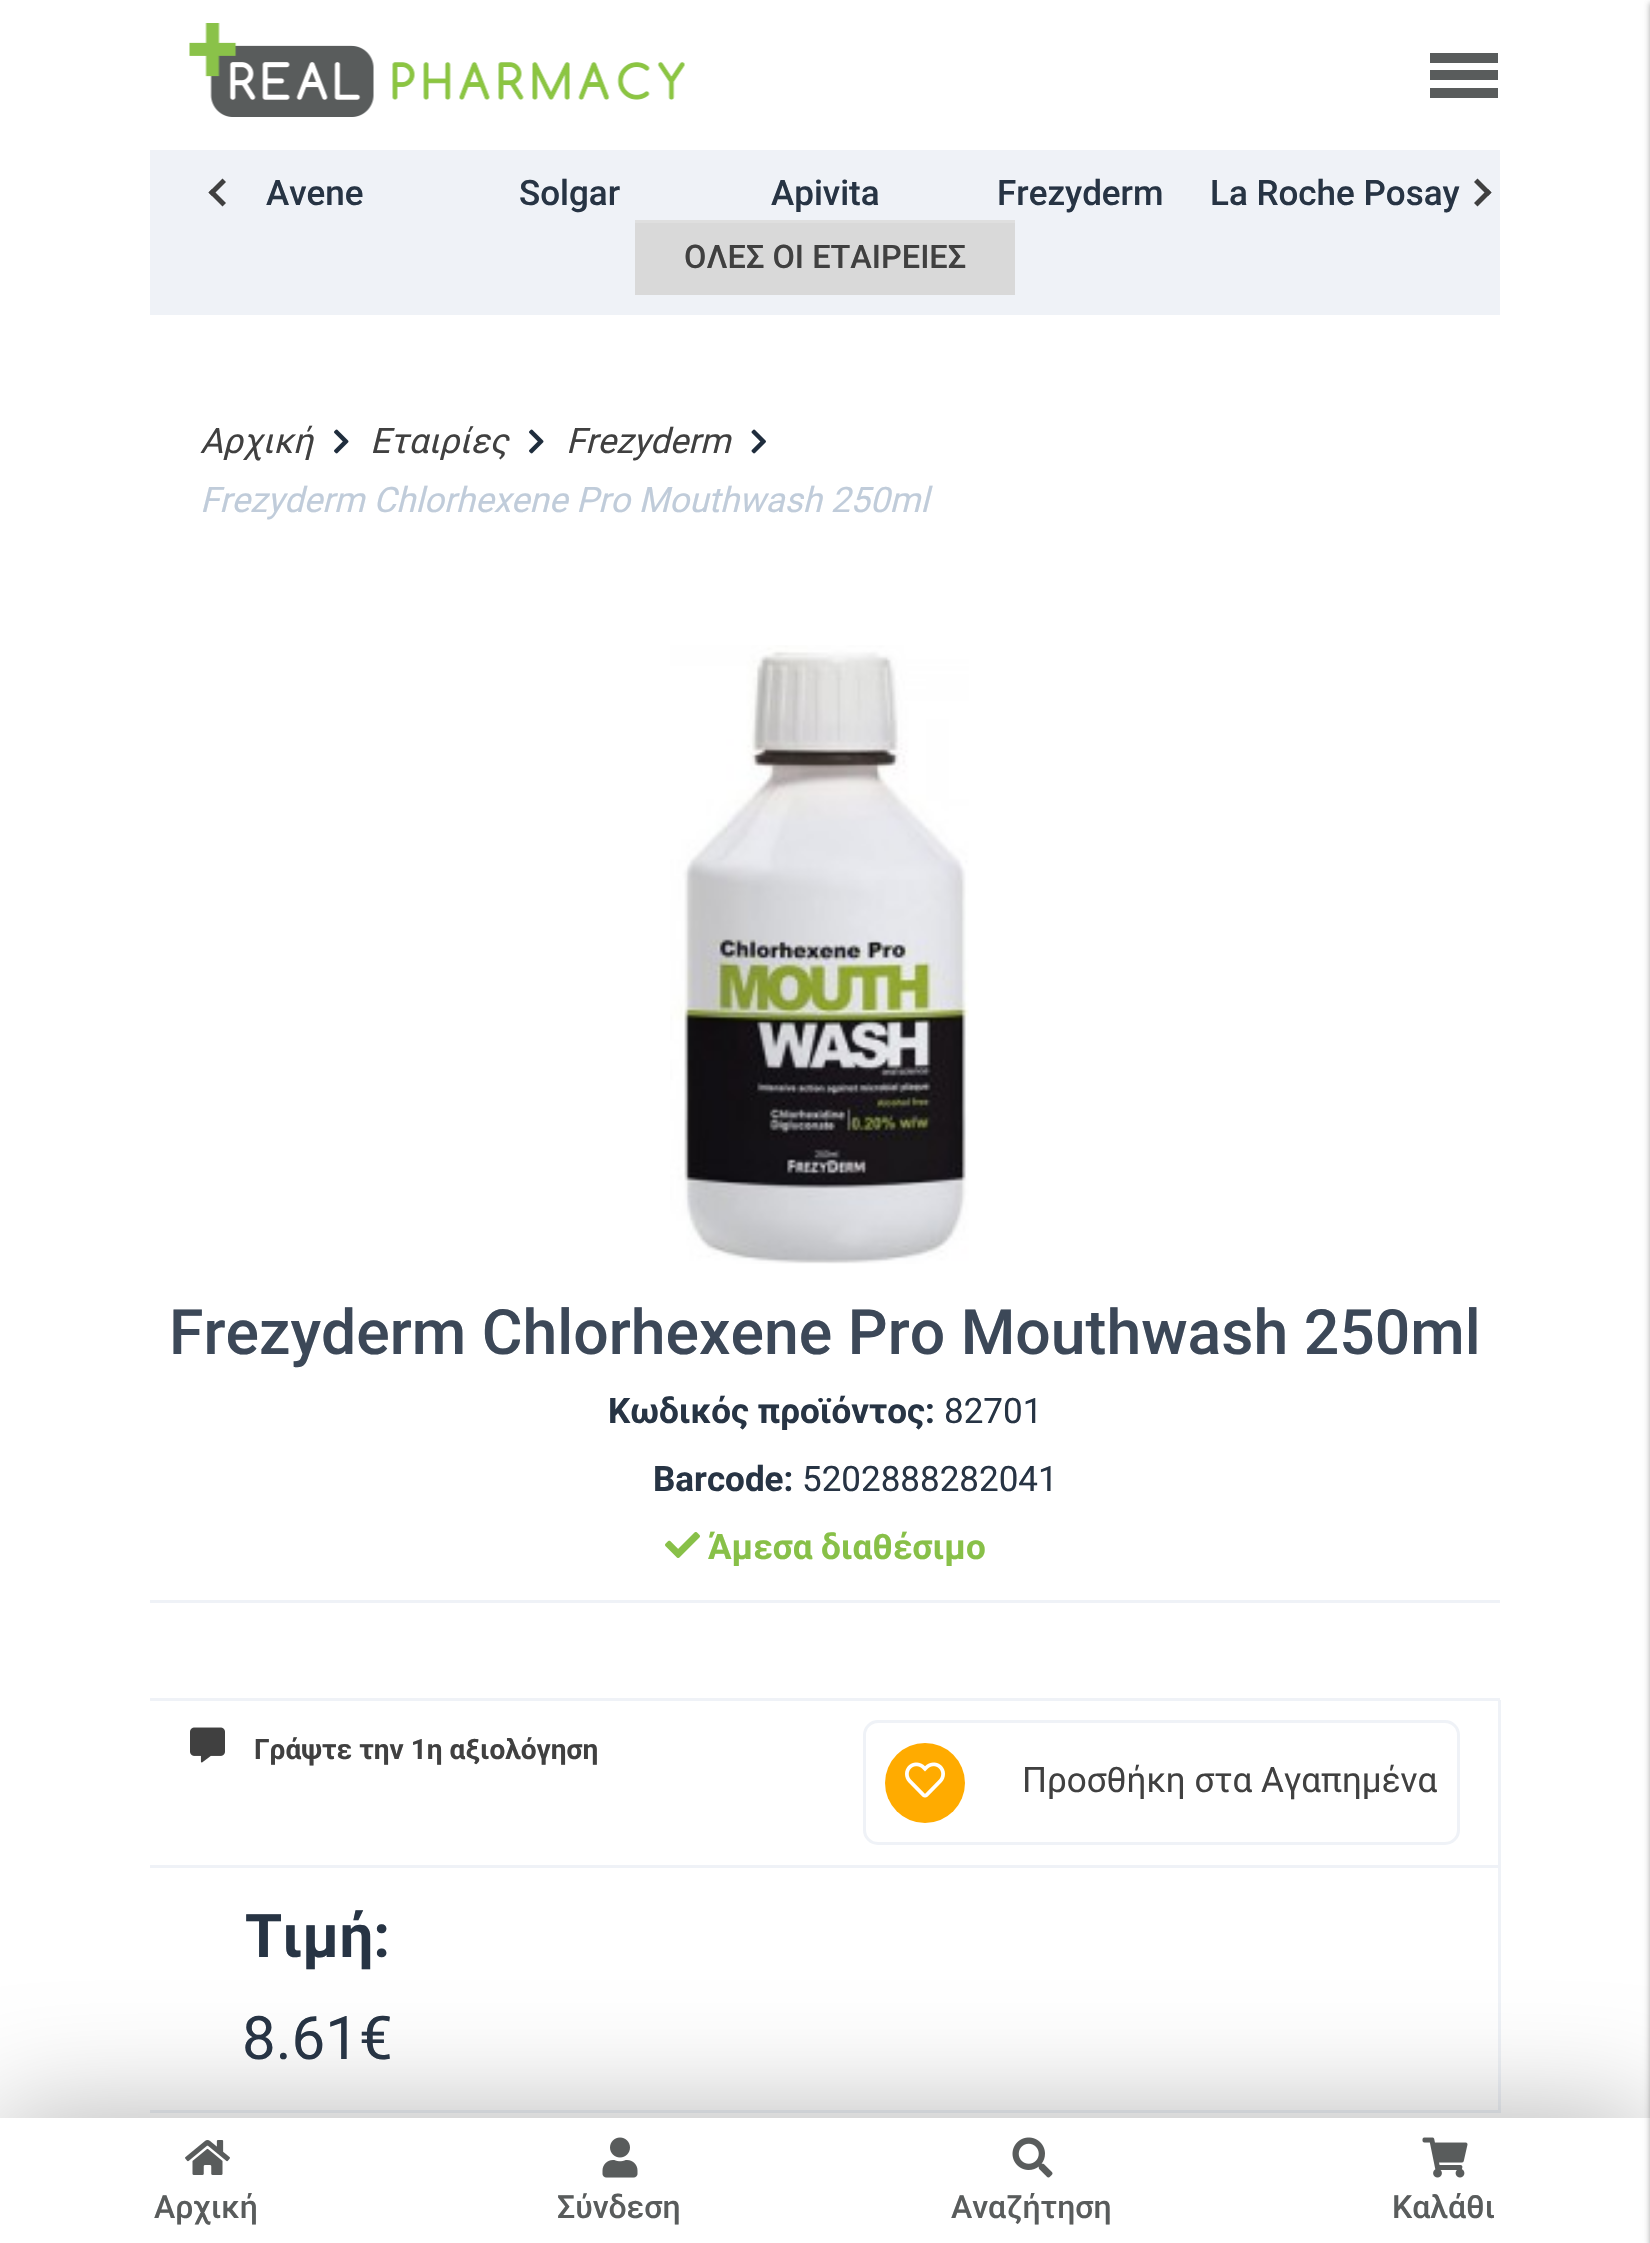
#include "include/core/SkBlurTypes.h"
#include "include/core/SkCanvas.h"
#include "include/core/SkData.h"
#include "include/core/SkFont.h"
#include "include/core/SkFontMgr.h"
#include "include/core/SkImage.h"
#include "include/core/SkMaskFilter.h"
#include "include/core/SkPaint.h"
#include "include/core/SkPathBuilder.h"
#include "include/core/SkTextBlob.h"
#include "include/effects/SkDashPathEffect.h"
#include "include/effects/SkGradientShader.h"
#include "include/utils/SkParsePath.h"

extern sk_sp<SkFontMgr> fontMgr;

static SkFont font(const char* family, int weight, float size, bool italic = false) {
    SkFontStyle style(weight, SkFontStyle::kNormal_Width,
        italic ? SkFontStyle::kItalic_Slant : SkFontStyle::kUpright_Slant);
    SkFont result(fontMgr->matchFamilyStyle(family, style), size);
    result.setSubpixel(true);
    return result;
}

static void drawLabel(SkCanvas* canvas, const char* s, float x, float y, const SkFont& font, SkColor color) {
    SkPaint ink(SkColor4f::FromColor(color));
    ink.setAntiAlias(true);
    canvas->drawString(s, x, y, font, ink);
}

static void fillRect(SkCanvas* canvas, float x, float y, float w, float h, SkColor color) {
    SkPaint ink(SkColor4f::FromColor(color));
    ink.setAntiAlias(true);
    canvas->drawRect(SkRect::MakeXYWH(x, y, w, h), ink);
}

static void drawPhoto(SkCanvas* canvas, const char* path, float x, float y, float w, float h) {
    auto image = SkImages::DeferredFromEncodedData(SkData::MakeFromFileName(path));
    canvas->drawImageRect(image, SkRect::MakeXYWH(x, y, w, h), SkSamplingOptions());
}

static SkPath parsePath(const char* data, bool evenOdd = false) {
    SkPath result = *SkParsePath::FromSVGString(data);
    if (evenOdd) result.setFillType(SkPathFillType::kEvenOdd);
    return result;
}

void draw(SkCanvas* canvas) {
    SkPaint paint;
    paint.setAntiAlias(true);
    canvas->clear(0xFFFFFFFF);
    drawPhoto(canvas, "assets/img1.png", 189, 23, 496, 94);
    fillRect(canvas, 1430, 53, 68, 10, 0xFF595C5C);
    fillRect(canvas, 1430, 70, 68, 10, 0xFF595C5C);
    fillRect(canvas, 1430, 88, 68, 10, 0xFF595C5C);
    fillRect(canvas, 150, 1865, 1350, 3, 0xFFEFF2F7);
    fillRect(canvas, 1498, 1865, 3, 248, 0xFFEFF2F7);
    fillRect(canvas, 150, 2110, 1350, 3, 0xFFEFF2F7);
    paint.setColor(0x4D000000);
    paint.setMaskFilter(SkMaskFilter::MakeBlur(kNormal_SkBlurStyle, 57.5f));
    canvas->drawRect(SkRect::MakeXYWH(0, 2118, 1650, 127), paint);
    paint.setMaskFilter(nullptr);
    fillRect(canvas, 0, 2118, 1650, 125, 0xFFFFFFFF);
    paint.setColor(0x3D000000);
    paint.setMaskFilter(SkMaskFilter::MakeBlur(kNormal_SkBlurStyle, 2.5f));
    canvas->drawRect(SkRect::MakeXYWH(1650, 3, 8, 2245), paint);
    paint.setMaskFilter(nullptr);
    paint.setColor(0x1F000000);
    paint.setMaskFilter(SkMaskFilter::MakeBlur(kNormal_SkBlurStyle, 4));
    canvas->drawRect(SkRect::MakeXYWH(1650, 3, 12, 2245), paint);
    paint.setMaskFilter(nullptr);
    fillRect(canvas, 150, 150, 1350, 165, 0xFFEFF2F7);
    paint.setColor(0xFF404040);
    canvas->drawPath(parsePath("M226 203L222.5 206.5L208.5 192.5L212 189Z"), paint);
    canvas->drawPath(parsePath("M226 182L212 196L208.5 192.5L222.5 178.5Z"), paint);
    SkFont font1 = font("Roboto", 500, 35);
    drawLabel(canvas, "Avene", 266, 205, font1, 0xFF273444);
    drawLabel(canvas, "Solgar", 519, 205, font1, 0xFF273444);
    drawLabel(canvas, "Apivita", 771, 205, font1, 0xFF273444);
    drawLabel(canvas, "Frezyderm", 997, 205, font1, 0xFF273444);
    drawLabel(canvas, "La Roche Posay", 1210, 205, font1, 0xFF273444);
    canvas->drawPath(parsePath("M1474 182L1477.5 178.5L1491.5 192.5L1488 196Z"), paint);
    canvas->drawPath(parsePath("M1474 203L1488 189L1491.5 192.5L1477.5 206.5Z"), paint);
    fillRect(canvas, 635, 223, 380, 72, 0xFFD9D9D9);
    fillRect(canvas, 635, 220, 380, 3, 0xFFDFDFDF);
    SkFont font2 = font("Roboto", 500, 32.5f);
    drawLabel(canvas, "ΟΛΕΣ ΟΙ ΕΤΑΙΡΕΙΕΣ", 684, 268, font2, 0xFF404040);
    SkFont font3 = font("Roboto", 400, 35, true);
    drawLabel(canvas, "Αρχική", 200, 453, font3, 0xFF404040);
    drawPhoto(canvas, "assets/img2.png", 334, 429, 15, 25);
    drawLabel(canvas, "Εταιρίες", 370, 453, font3, 0xFF404040);
    drawPhoto(canvas, "assets/img2.png", 529, 429, 15, 25);
    drawLabel(canvas, "Frezyderm", 566, 453, font3, 0xFF404040);
    drawPhoto(canvas, "assets/img3.png", 751, 429, 15, 25);
    drawLabel(canvas, "Frezyderm Chlorhexene Pro Mouthwash 250ml", 200, 512, font3, 0xFFC0CCDA);
    drawPhoto(canvas, "assets/img4.png", 670, 645, 299, 619);
    SkFont font4 = font("Roboto", 500, 62.5f);
    drawLabel(canvas, "Frezyderm Chlorhexene Pro Mouthwash 250ml", 169, 1354, font4, 0xFF3C4858);
    fillRect(canvas, 150, 1600, 1350, 3, 0xFFEFF2F7);
    SkFont font5 = font("Roboto", 700, 35);
    drawLabel(canvas, "Κωδικός προϊόντος:", 608, 1423, font5, 0xFF273444);
    SkFont font6 = font("Roboto", 400, 35);
    drawLabel(canvas, "82701", 944, 1423, font6, 0xFF273444);
    drawLabel(canvas, "Barcode:", 653, 1491, font5, 0xFF273444);
    drawLabel(canvas, "5202888282041", 802, 1491, font6, 0xFF273444);
    drawPhoto(canvas, "assets/img5.png", 665, 1532, 35, 26);
    drawLabel(canvas, "Άμεσα διαθέσιμο", 708, 1559, font5, 0xFF88C048);
    fillRect(canvas, 150, 1698, 1350, 3, 0xFFEFF2F7);
    drawPhoto(canvas, "assets/img6.png", 190, 1727, 35, 36);
    SkFont font7 = font("Roboto", 700, 28);
    drawLabel(canvas, "Γράψτε την 1η αξιολόγηση", 254, 1759, font7, 0xFF404040);
    fillRect(canvas, 1498, 1700, 3, 165, 0xFFEFF2F7);
    paint.setStroke(true);
    paint.setStrokeWidth(3);
    paint.setColor(0xFFEFF2F7);
    canvas->drawRoundRect(SkRect::MakeXYWH(864.5f, 1721.5f, 594, 122), 13.5f, 13.5f, paint);
    paint.setStroke(false);
    paint.setColor(0xFFFFAB00);
    canvas->drawCircle(925, 1783, 40, paint);
    drawPhoto(canvas, "assets/img7.png", 905, 1762, 40, 36);
    drawLabel(canvas, "Προσθήκη στα Αγαπημένα", 1022, 1792, font6, 0xFF404040);
    SkFont font8 = font("Roboto", 700, 60);
    drawLabel(canvas, "Τιμή:", 245, 1957, font8, 0xFF273444);
    SkFont font9 = font("Roboto", 400, 60);
    drawLabel(canvas, "8.61€", 242, 2059, font9, 0xFF273444);
    drawPhoto(canvas, "assets/img8.png", 185, 2140, 45, 35);
    SkFont font10 = font("Roboto", 500, 32);
    drawLabel(canvas, "Αρχική", 154, 2218, font10, 0xFF595C5C);
    drawPhoto(canvas, "assets/img9.png", 602, 2137, 36, 41);
    drawLabel(canvas, "Σύνδεση", 557, 2218, font10, 0xFF595C5C);
    drawPhoto(canvas, "assets/img10.png", 1012, 2137, 41, 41);
    drawLabel(canvas, "Αναζήτηση", 951, 2218, font10, 0xFF595C5C);
    drawPhoto(canvas, "assets/img11.png", 1422, 2137, 46, 41);
    drawLabel(canvas, "Καλάθι", 1392, 2218, font10, 0xFF595C5C);
}
